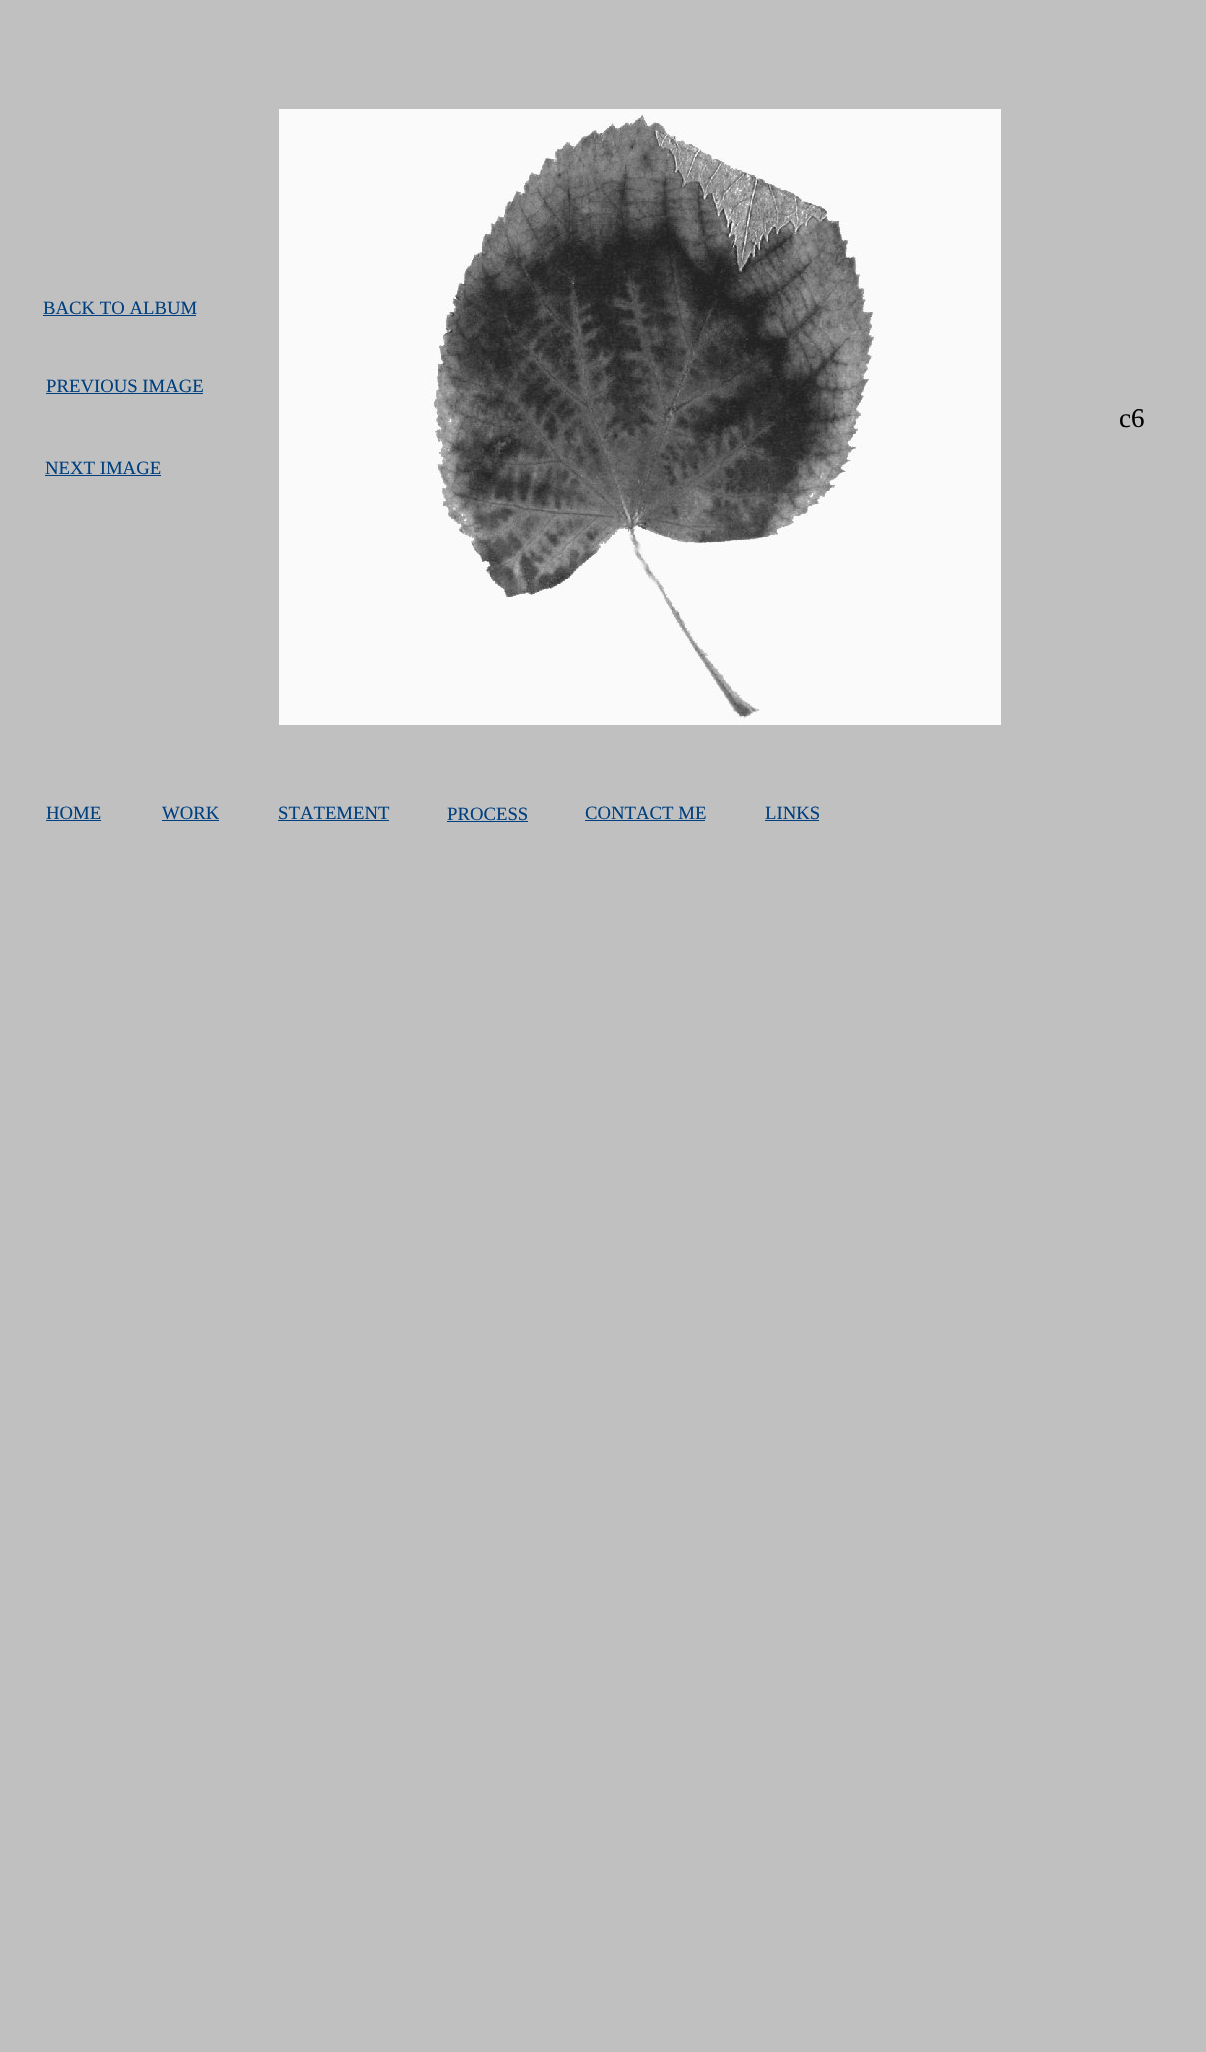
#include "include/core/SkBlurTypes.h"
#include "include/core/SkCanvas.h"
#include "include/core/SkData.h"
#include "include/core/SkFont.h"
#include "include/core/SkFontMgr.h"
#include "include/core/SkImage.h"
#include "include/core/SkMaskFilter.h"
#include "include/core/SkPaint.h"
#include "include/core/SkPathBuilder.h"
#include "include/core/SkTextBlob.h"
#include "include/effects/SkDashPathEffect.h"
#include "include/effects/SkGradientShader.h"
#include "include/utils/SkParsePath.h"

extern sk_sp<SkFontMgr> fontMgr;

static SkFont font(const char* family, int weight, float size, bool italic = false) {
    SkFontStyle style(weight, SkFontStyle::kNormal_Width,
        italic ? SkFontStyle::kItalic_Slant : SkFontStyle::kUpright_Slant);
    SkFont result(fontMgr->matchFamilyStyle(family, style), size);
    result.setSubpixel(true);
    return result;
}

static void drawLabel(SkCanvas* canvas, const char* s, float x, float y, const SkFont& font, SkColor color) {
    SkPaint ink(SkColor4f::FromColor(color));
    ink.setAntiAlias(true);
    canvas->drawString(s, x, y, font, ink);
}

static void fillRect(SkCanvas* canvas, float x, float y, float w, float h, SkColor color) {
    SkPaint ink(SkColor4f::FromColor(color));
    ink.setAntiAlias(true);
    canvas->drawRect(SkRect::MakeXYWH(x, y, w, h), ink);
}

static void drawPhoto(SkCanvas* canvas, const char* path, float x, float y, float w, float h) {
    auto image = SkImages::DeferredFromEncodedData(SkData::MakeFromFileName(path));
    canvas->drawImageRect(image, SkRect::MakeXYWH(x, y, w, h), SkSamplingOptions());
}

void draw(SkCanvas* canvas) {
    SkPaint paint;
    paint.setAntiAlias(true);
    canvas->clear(0xFFC0C0C0);
    SkFont font1 = font("Liberation Serif", 400, 18.75f);
    drawLabel(canvas, "BACK TO ALBUM", 43, 314, font1, 0xFF004080);
    fillRect(canvas, 43, 315, 153, 1, 0xFF004080);
    drawPhoto(canvas, "assets/img1.png", 279, 109, 722, 616);
    drawLabel(canvas, "PREVIOUS IMAGE", 46, 392, font1, 0xFF004080);
    fillRect(canvas, 46, 393, 157, 1, 0xFF004080);
    SkFont font2 = font("Liberation Serif", 400, 27);
    drawLabel(canvas, "c6", 1119, 427, font2, 0xFF000000);
    drawLabel(canvas, "NEXT IMAGE", 45, 474, font1, 0xFF004080);
    fillRect(canvas, 45, 475, 116, 1, 0xFF004080);
    drawLabel(canvas, "HOME", 46, 819, font1, 0xFF004080);
    fillRect(canvas, 46, 820, 55, 1, 0xFF004080);
    drawLabel(canvas, "WORK", 162, 819, font1, 0xFF004080);
    fillRect(canvas, 162, 820, 57, 1, 0xFF004080);
    drawLabel(canvas, "STATEMENT", 278, 819, font1, 0xFF004080);
    fillRect(canvas, 278, 820, 111, 1, 0xFF004080);
    drawLabel(canvas, "PROCESS", 447, 820, font1, 0xFF004080);
    fillRect(canvas, 447, 821, 81, 1, 0xFF004080);
    drawLabel(canvas, "CONTACT ME", 585, 819, font1, 0xFF004080);
    fillRect(canvas, 585, 820, 120, 1, 0xFF004080);
    drawLabel(canvas, "LINKS", 765, 819, font1, 0xFF004080);
    fillRect(canvas, 765, 820, 54, 1, 0xFF004080);
}
